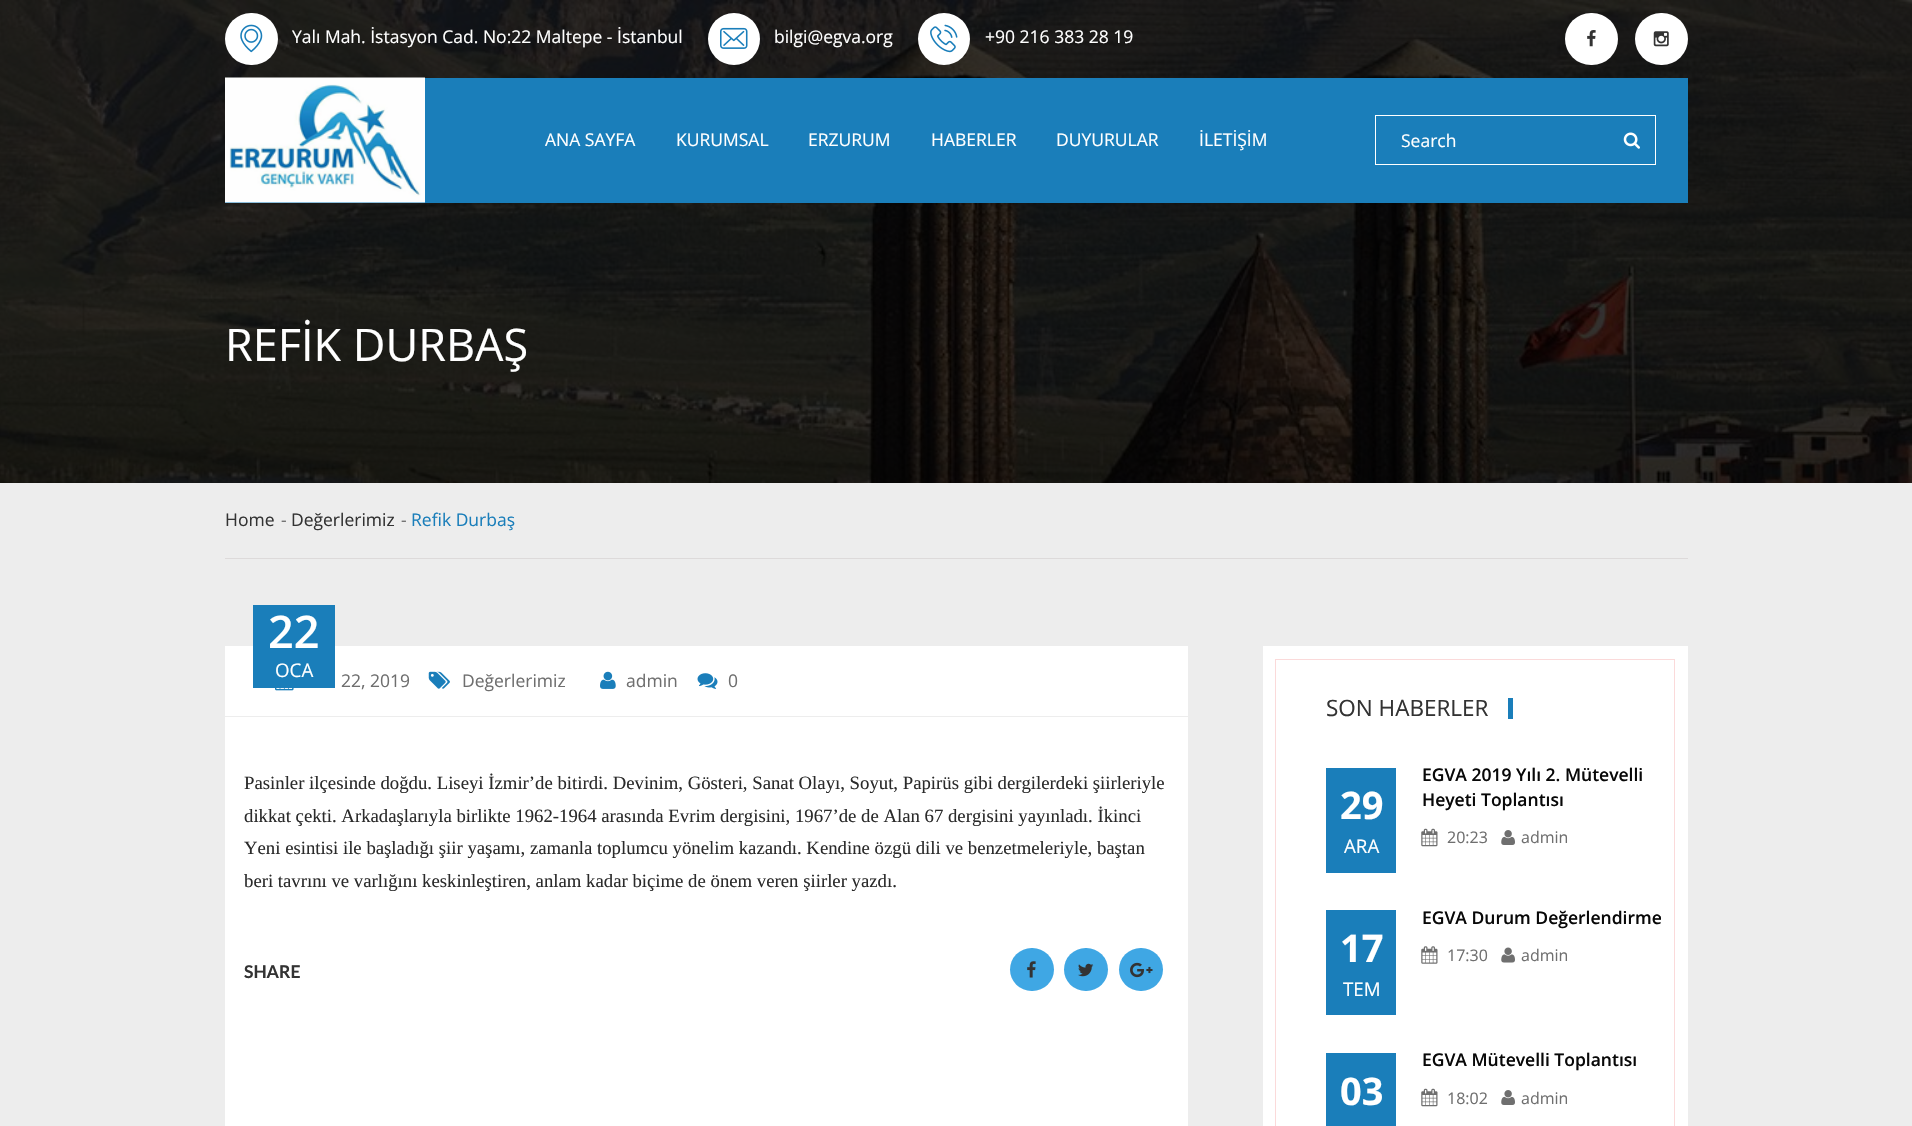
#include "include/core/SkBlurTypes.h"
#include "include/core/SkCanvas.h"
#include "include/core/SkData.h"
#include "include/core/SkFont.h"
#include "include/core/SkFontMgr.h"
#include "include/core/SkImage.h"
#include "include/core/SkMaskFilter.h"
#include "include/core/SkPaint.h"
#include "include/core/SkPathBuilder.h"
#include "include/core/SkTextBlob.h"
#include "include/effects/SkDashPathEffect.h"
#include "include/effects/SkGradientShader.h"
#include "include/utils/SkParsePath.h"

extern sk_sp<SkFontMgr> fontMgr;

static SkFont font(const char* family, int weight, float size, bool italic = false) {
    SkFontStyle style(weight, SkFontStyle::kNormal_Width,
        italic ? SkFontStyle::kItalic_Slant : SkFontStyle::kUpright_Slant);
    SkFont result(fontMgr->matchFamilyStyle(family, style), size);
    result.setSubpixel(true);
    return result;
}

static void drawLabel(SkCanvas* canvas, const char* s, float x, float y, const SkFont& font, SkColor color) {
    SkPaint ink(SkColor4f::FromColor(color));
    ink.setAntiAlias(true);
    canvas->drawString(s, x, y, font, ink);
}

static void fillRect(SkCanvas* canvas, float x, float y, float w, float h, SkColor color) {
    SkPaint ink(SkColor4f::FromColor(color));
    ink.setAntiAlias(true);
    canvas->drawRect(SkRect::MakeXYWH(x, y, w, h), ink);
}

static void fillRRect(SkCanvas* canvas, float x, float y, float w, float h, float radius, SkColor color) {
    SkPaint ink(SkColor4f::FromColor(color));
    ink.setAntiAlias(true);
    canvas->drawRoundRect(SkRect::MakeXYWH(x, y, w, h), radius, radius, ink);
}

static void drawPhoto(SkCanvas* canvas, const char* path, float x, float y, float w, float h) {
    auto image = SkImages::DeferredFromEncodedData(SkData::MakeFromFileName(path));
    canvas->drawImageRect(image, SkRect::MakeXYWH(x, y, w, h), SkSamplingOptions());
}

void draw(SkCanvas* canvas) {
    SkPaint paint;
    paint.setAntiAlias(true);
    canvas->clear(0xFFEDEDED);
    drawPhoto(canvas, "assets/img8.png", 0, 0, 1912, 483);
    fillRRect(canvas, 225, 13, 53, 52, 26, 0xFFFFFFFF);
    drawPhoto(canvas, "assets/img1.png", 240, 24, 23, 29);
    SkFont font1 = font("Open Sans", 400, 17.5f);
    drawLabel(canvas, "Yalı Mah. İstasyon Cad. No:22 Maltepe - İstanbul", 292, 43, font1, 0xFFFFFFFF);
    paint.setColor(0xFFFFFFFF);
    canvas->drawCircle(734, 39, 26, paint);
    drawPhoto(canvas, "assets/img2.png", 720, 27, 28, 22);
    drawLabel(canvas, "bilgi@egva.org", 774, 43, font1, 0xFFFFFFFF);
    canvas->drawCircle(944, 39, 26, paint);
    drawPhoto(canvas, "assets/img3.png", 930, 24, 28, 29);
    drawLabel(canvas, "+90 216 383 28 19", 985, 43, font1, 0xFFFFFFFF);
    fillRRect(canvas, 1565, 13, 53, 52, 26, 0xFFFFFFFF);
    drawPhoto(canvas, "assets/img4.png", 1587, 30, 9, 17);
    fillRRect(canvas, 1635, 13, 53, 52, 26, 0xFFFFFFFF);
    drawPhoto(canvas, "assets/img5.png", 1653, 31, 16, 16);
    fillRect(canvas, 225, 78, 1463, 125, 0xFF1A7EBA);
    drawPhoto(canvas, "assets/img6.png", 225, 77, 200, 126);
    drawLabel(canvas, "ANA SAYFA", 545, 146, font1, 0xFFFFFFFF);
    drawLabel(canvas, "KURUMSAL", 676, 146, font1, 0xFFFFFFFF);
    drawLabel(canvas, "ERZURUM", 808, 146, font1, 0xFFFFFFFF);
    drawLabel(canvas, "HABERLER", 931, 146, font1, 0xFFFFFFFF);
    drawLabel(canvas, "DUYURULAR", 1056, 146, font1, 0xFFFFFFFF);
    drawLabel(canvas, "İLETİŞİM", 1199, 146, font1, 0xFFFFFFFF);
    paint.setStroke(true);
    paint.setStrokeWidth(1);
    canvas->drawRect(SkRect::MakeXYWH(1375.5f, 115.5f, 280, 49), paint);
    drawLabel(canvas, "Search", 1401, 147, font1, 0xFFFFFFFF);
    drawPhoto(canvas, "assets/img7.png", 1623, 132, 17, 17);
    SkFont font2 = font("Open Sans", 400, 45);
    drawLabel(canvas, "REFİK DURBAŞ", 225, 361, font2, 0xFFFFFFFF);
    fillRect(canvas, 225, 558, 1463, 1, 0xFFDDDADA);
    drawLabel(canvas, "Home", 225, 526, font1, 0xFF333333);
    drawLabel(canvas, "-", 281, 526, font1, 0xFF6F6F6F);
    drawLabel(canvas, "Değerlerimiz", 291, 526, font1, 0xFF333333);
    drawLabel(canvas, "-", 401, 526, font1, 0xFF6F6F6F);
    drawLabel(canvas, "Refik Durbaş", 411, 526, font1, 0xFF1A7EBA);
    fillRect(canvas, 225, 646, 963, 480, 0xFFFFFFFF);
    fillRect(canvas, 253, 605, 82, 83, 0xFF1A7EBA);
    SkFont font3 = font("Open Sans", 600, 45);
    drawLabel(canvas, "22", 268, 648, font3, 0xFFFFFFFF);
    SkFont font4 = font("Open Sans", 400, 18.75f);
    drawLabel(canvas, "OCA", 275, 677, font4, 0xFFFFFFFF);
    fillRect(canvas, 225, 716, 963, 1, 0xFFEDEDED);
    drawPhoto(canvas, "assets/img9.png", 275, 688, 19, 3);
    drawLabel(canvas, "22, 2019", 341, 687, font1, 0xFF6F6F6F);
    drawPhoto(canvas, "assets/img10.png", 428, 671, 22, 18);
    drawLabel(canvas, "Değerlerimiz", 462, 687, font1, 0xFF6F6F6F);
    drawPhoto(canvas, "assets/img11.png", 600, 671, 16, 18);
    drawLabel(canvas, "admin", 626, 687, font1, 0xFF6F6F6F);
    drawPhoto(canvas, "assets/img12.png", 697, 673, 21, 16);
    drawLabel(canvas, "0", 728, 687, font1, 0xFF6F6F6F);
    SkFont font5 = font("Liberation Serif", 400, 18.75f);
    drawLabel(canvas, "Pasinler ilçesinde doğdu. Liseyi İzmir’de bitirdi. Devinim, Gösteri, Sanat Olayı, Soyut, Papirüs gibi dergilerdeki şiirleriyle", 244, 789, font5, 0xFF2B2B2B);
    drawLabel(canvas, "dikkat çekti. Arkadaşlarıyla birlikte 1962-1964 arasında Evrim dergisini, 1967’de de Alan 67 dergisini yayınladı. İkinci", 244, 822, font5, 0xFF2B2B2B);
    drawLabel(canvas, "Yeni esintisi ile başladığı şiir yaşamı, zamanla toplumcu yönelim kazandı. Kendine özgü dili ve benzetmeleriyle, baştan", 244, 854, font5, 0xFF2B2B2B);
    drawLabel(canvas, "beri tavrını ve varlığını keskinleştiren, anlam kadar biçime de önem veren şiirler yazdı.", 244, 887, font5, 0xFF2B2B2B);
    SkFont font6 = font("Lato", 700, 17.5f);
    drawLabel(canvas, "SHARE", 244, 978, font6, 0xFF333333);
    fillRRect(canvas, 1010, 948, 44, 43, 21.5f, 0xFF3FA7E4);
    drawPhoto(canvas, "assets/img13.png", 1027, 961, 9, 17);
    fillRRect(canvas, 1064, 948, 44, 43, 21.5f, 0xFF3FA7E4);
    drawPhoto(canvas, "assets/img14.png", 1078, 963, 16, 14);
    fillRRect(canvas, 1119, 948, 44, 43, 21.5f, 0xFF3FA7E4);
    drawPhoto(canvas, "assets/img15.png", 1130, 962, 23, 16);
    fillRect(canvas, 1263, 646, 425, 480, 0xFFFFFFFF);
    paint.setColor(0xFFFBDADA);
    canvas->drawRect(SkRect::MakeXYWH(1275.5f, 659.5f, 399, 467), paint);
    fillRect(canvas, 1508, 698, 5, 21, 0xFF1A7EBA);
    SkFont font7 = font("Open Sans", 400, 22.5f);
    drawLabel(canvas, "SON HABERLER", 1326, 716, font7, 0xFF333333);
    fillRect(canvas, 1326, 768, 70, 105, 0xFF1A7EBA);
    SkFont font8 = font("Open Sans", 700, 38);
    drawLabel(canvas, "29", 1340, 819, font8, 0xFFFFFFFF);
    drawLabel(canvas, "ARA", 1344, 853, font4, 0xFFFFFFFF);
    SkFont font9 = font("Open Sans", 600, 17.5f);
    drawLabel(canvas, "EGVA 2019 Yılı 2. Mütevelli", 1422, 781, font9, 0xFF080808);
    drawLabel(canvas, "Heyeti Toplantısı", 1422, 806, font9, 0xFF080808);
    drawPhoto(canvas, "assets/img16.png", 1421, 828, 17, 19);
    SkFont font10 = font("Open Sans", 400, 16);
    drawLabel(canvas, "20:23", 1447, 843, font10, 0xFF6F6F6F);
    drawPhoto(canvas, "assets/img17.png", 1501, 830, 14, 15);
    drawLabel(canvas, "admin", 1521, 843, font10, 0xFF6F6F6F);
    fillRect(canvas, 1326, 910, 70, 105, 0xFF1A7EBA);
    drawLabel(canvas, "17", 1340, 962, font8, 0xFFFFFFFF);
    drawLabel(canvas, "TEM", 1343, 996, font4, 0xFFFFFFFF);
    drawLabel(canvas, "EGVA Durum Değerlendirme", 1422, 924, font9, 0xFF080808);
    drawPhoto(canvas, "assets/img18.png", 1421, 946, 17, 18);
    drawLabel(canvas, "17:30", 1447, 961, font10, 0xFF6F6F6F);
    drawPhoto(canvas, "assets/img19.png", 1501, 947, 14, 16);
    drawLabel(canvas, "admin", 1521, 961, font10, 0xFF6F6F6F);
    fillRect(canvas, 1326, 1053, 70, 73, 0xFF1A7EBA);
    drawLabel(canvas, "03", 1340, 1105, font8, 0xFFFFFFFF);
    drawLabel(canvas, "EGVA Mütevelli Toplantısı", 1422, 1066, font9, 0xFF080808);
    drawPhoto(canvas, "assets/img16.png", 1421, 1088, 17, 19);
    drawLabel(canvas, "18:02", 1447, 1104, font10, 0xFF6F6F6F);
    drawPhoto(canvas, "assets/img17.png", 1501, 1090, 14, 15);
    drawLabel(canvas, "admin", 1521, 1104, font10, 0xFF6F6F6F);
}
